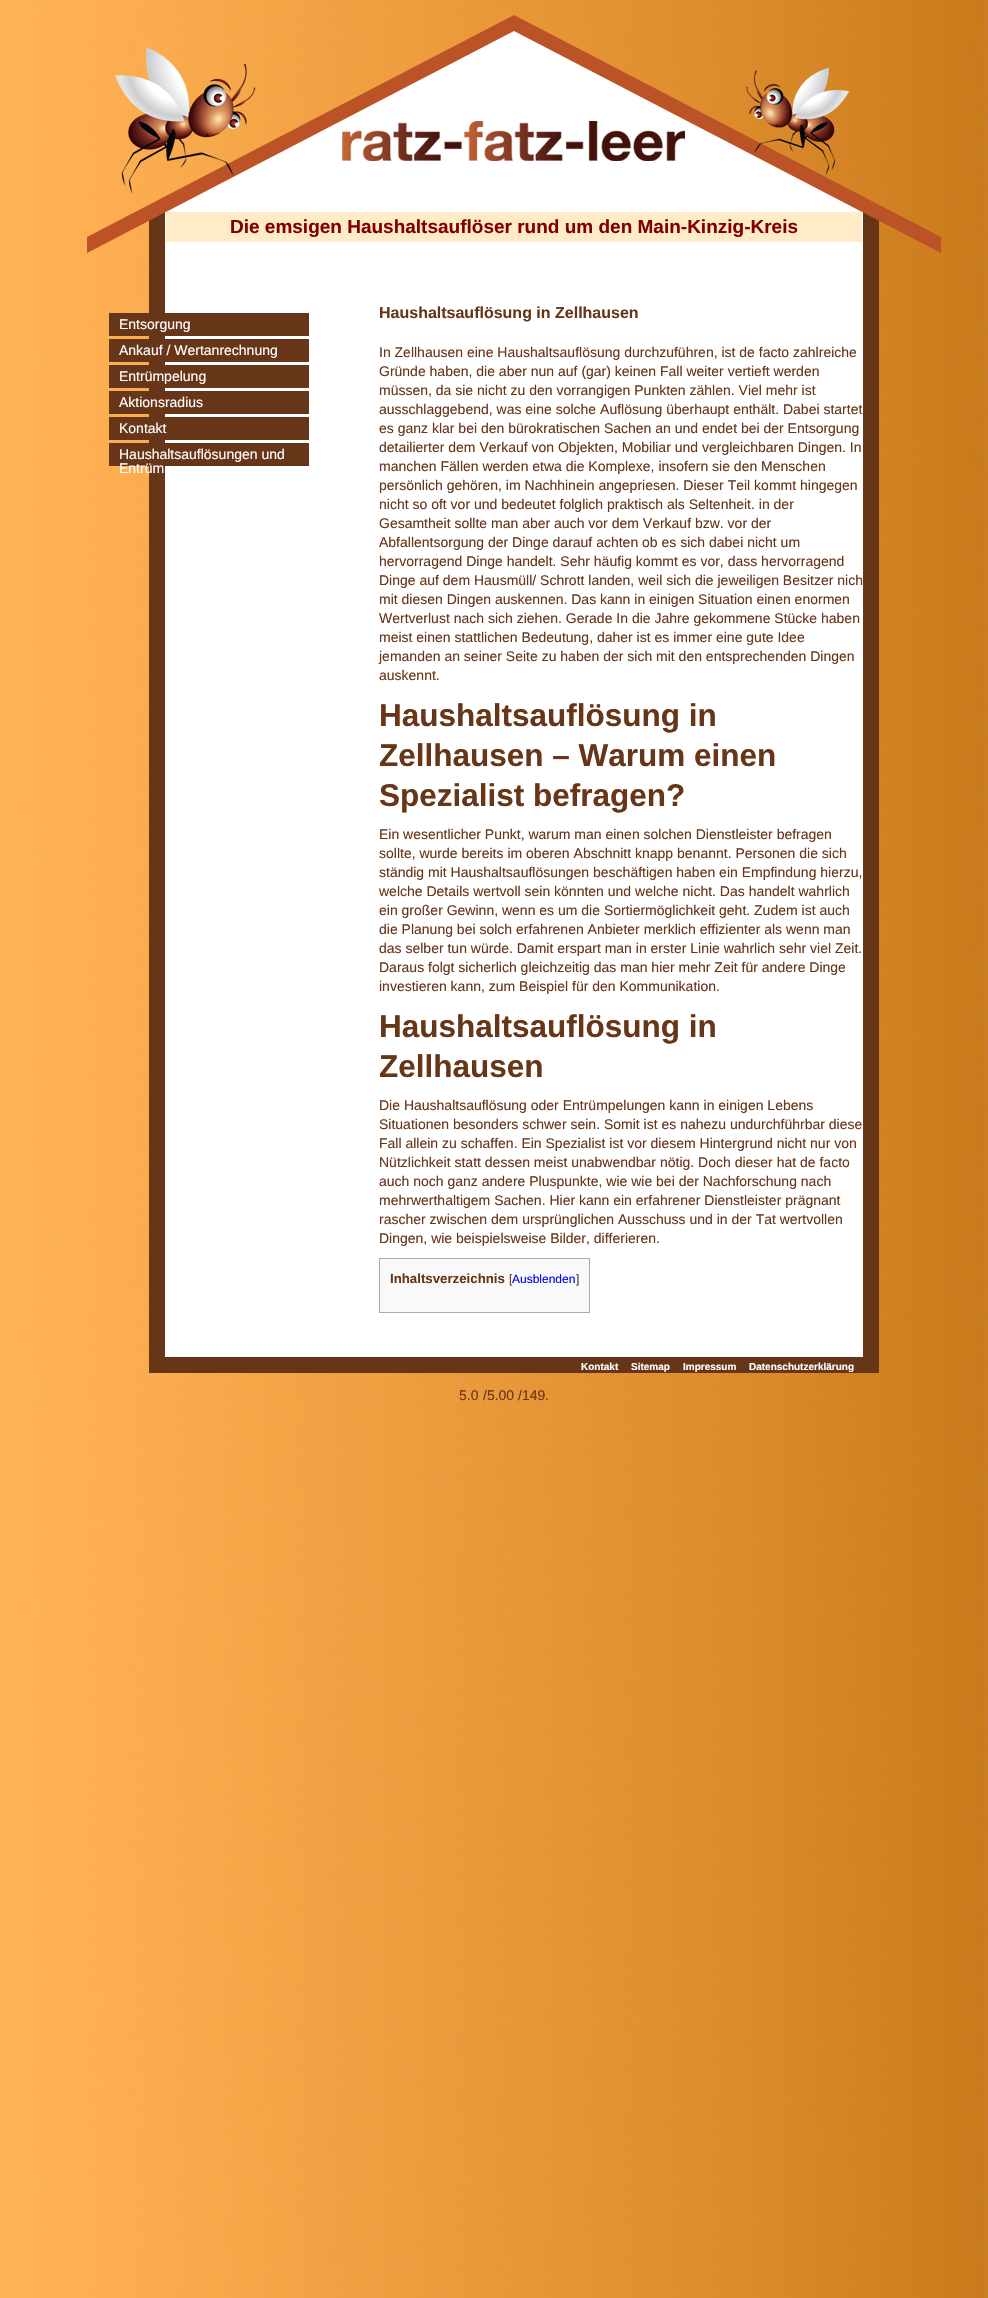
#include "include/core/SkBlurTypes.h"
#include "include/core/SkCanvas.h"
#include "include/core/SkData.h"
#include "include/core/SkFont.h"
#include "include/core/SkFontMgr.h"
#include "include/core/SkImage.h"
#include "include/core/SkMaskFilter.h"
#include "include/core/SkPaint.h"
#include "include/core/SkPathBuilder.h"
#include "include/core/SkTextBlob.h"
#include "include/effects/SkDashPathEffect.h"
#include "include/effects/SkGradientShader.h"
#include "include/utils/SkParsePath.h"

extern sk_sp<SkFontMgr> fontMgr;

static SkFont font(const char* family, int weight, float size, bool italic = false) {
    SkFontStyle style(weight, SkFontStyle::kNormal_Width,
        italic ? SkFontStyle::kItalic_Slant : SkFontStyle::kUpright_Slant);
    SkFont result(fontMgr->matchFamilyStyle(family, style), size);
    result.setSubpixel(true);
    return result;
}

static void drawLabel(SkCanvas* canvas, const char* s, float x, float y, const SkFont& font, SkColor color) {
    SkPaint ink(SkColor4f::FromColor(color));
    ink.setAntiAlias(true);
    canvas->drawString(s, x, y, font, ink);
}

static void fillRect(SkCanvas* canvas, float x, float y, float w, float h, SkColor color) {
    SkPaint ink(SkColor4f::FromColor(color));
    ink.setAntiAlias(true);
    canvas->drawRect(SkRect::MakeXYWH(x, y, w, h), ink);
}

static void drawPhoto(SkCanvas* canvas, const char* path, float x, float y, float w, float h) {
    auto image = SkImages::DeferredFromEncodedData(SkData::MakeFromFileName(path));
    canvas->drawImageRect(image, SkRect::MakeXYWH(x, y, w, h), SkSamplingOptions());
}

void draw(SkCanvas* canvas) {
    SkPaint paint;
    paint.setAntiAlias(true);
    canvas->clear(0xFFFFFFFF);
    drawPhoto(canvas, "assets/img1.png", 0, 0, 988, 2298);
    drawPhoto(canvas, "assets/img2.png", 143, 15, 742, 193);
    drawPhoto(canvas, "assets/img3.png", 115, 47, 141, 147);
    drawPhoto(canvas, "assets/img4.png", 746, 67, 104, 108);
    drawPhoto(canvas, "assets/img5.png", 148, 208, 731, 45);
    drawPhoto(canvas, "assets/img6.png", 87, 208, 854, 45);
    fillRect(canvas, 166, 212, 696, 30, 0xFFFFEBC8);
    SkFont font1 = font("Liberation Sans", 700, 19);
    drawLabel(canvas, "Die emsigen Haushaltsauflöser rund um den Main-Kinzig-Kreis", 230, 233, font1, 0xFF800000);
    drawPhoto(canvas, "assets/img7.png", 148, 253, 731, 1104);
    fillRect(canvas, 109, 313, 200, 23, 0xFF673517);
    SkFont font2 = font("Liberation Sans", 400, 14);
    drawLabel(canvas, "Entsorgung", 119, 329, font2, 0xFFFFFFFF);
    fillRect(canvas, 109, 339, 200, 23, 0xFF673517);
    drawLabel(canvas, "Ankauf / Wertanrechnung", 119, 355, font2, 0xFFFFFFFF);
    fillRect(canvas, 109, 365, 200, 23, 0xFF673517);
    drawLabel(canvas, "Entrümpelung", 119, 381, font2, 0xFFFFFFFF);
    fillRect(canvas, 109, 391, 200, 23, 0xFF673517);
    drawLabel(canvas, "Aktionsradius", 119, 407, font2, 0xFFFFFFFF);
    fillRect(canvas, 109, 417, 200, 23, 0xFF673517);
    drawLabel(canvas, "Kontakt", 119, 433, font2, 0xFFFFFFFF);
    fillRect(canvas, 109, 443, 200, 23, 0xFF673517);
    drawLabel(canvas, "Haushaltsauflösungen und", 119, 459, font2, 0xFFFFFFFF);
    drawLabel(canvas, "Entrüm", 119, 473, font2, 0xFFFFFFFF);
    SkFont font3 = font("Liberation Sans", 700, 16);
    drawLabel(canvas, "Haushaltsauflösung in Zellhausen", 379, 318, font3, 0xFF673517);
    drawLabel(canvas, "In Zellhausen eine Haushaltsauflösung durchzuführen, ist de facto zahlreiche", 379, 357, font2, 0xFF673517);
    drawLabel(canvas, "Gründe haben, die aber nun auf (gar) keinen Fall weiter vertieft werden", 379, 376, font2, 0xFF673517);
    drawLabel(canvas, "müssen, da sie nicht zu den vorrangigen Punkten zählen. Viel mehr ist", 379, 395, font2, 0xFF673517);
    drawLabel(canvas, "ausschlaggebend, was eine solche Auflösung überhaupt enthält. Dabei startet", 379, 414, font2, 0xFF673517);
    drawLabel(canvas, "es ganz klar bei den bürokratischen Sachen an und endet bei der Entsorgung", 379, 433, font2, 0xFF673517);
    drawLabel(canvas, "detailierter dem Verkauf von Objekten, Mobiliar und vergleichbaren Dingen. In", 379, 452, font2, 0xFF673517);
    drawLabel(canvas, "manchen Fällen werden etwa die Komplexe, insofern sie den Menschen", 379, 471, font2, 0xFF673517);
    drawLabel(canvas, "persönlich gehören, im Nachhinein angepriesen. Dieser Teil kommt hingegen", 379, 490, font2, 0xFF673517);
    drawLabel(canvas, "nicht so oft vor und bedeutet folglich praktisch als Seltenheit. in der", 379, 509, font2, 0xFF673517);
    drawLabel(canvas, "Gesamtheit sollte man aber auch vor dem Verkauf bzw. vor der", 379, 528, font2, 0xFF673517);
    drawLabel(canvas, "Abfallentsorgung der Dinge darauf achten ob es sich dabei nicht um", 379, 547, font2, 0xFF673517);
    drawLabel(canvas, "hervorragend Dinge handelt. Sehr häufig kommt es vor, dass hervorragend", 379, 566, font2, 0xFF673517);
    drawLabel(canvas, "Dinge auf dem Hausmüll/ Schrott landen, weil sich die jeweiligen Besitzer nich", 379, 585, font2, 0xFF673517);
    drawLabel(canvas, "mit diesen Dingen auskennen. Das kann in einigen Situation einen enormen", 379, 604, font2, 0xFF673517);
    drawLabel(canvas, "Wertverlust nach sich ziehen. Gerade In die Jahre gekommene Stücke haben", 379, 623, font2, 0xFF673517);
    drawLabel(canvas, "meist einen stattlichen Bedeutung, daher ist es immer eine gute Idee", 379, 642, font2, 0xFF673517);
    drawLabel(canvas, "jemanden an seiner Seite zu haben der sich mit den entsprechenden Dingen", 379, 661, font2, 0xFF673517);
    drawLabel(canvas, "auskennt.", 379, 680, font2, 0xFF673517);
    SkFont font4 = font("Liberation Sans", 700, 31.5f);
    drawLabel(canvas, "Haushaltsauflösung in", 379, 726, font4, 0xFF673517);
    drawLabel(canvas, "Zellhausen – Warum einen", 379, 766, font4, 0xFF673517);
    drawLabel(canvas, "Spezialist befragen?", 379, 806, font4, 0xFF673517);
    drawLabel(canvas, "Ein wesentlicher Punkt, warum man einen solchen Dienstleister befragen", 379, 839, font2, 0xFF673517);
    drawLabel(canvas, "sollte, wurde bereits im oberen Abschnitt knapp benannt. Personen die sich", 379, 858, font2, 0xFF673517);
    drawLabel(canvas, "ständig mit Haushaltsauflösungen beschäftigen haben ein Empfindung hierzu,", 379, 877, font2, 0xFF673517);
    drawLabel(canvas, "welche Details wertvoll sein könnten und welche nicht. Das handelt wahrlich", 379, 896, font2, 0xFF673517);
    drawLabel(canvas, "ein großer Gewinn, wenn es um die Sortiermöglichkeit geht. Zudem ist auch", 379, 915, font2, 0xFF673517);
    drawLabel(canvas, "die Planung bei solch erfahrenen Anbieter merklich effizienter als wenn man", 379, 934, font2, 0xFF673517);
    drawLabel(canvas, "das selber tun würde. Damit erspart man in erster Linie wahrlich sehr viel Zeit.", 379, 953, font2, 0xFF673517);
    drawLabel(canvas, "Daraus folgt sicherlich gleichzeitig das man hier mehr Zeit für andere Dinge", 379, 972, font2, 0xFF673517);
    drawLabel(canvas, "investieren kann, zum Beispiel für den Kommunikation.", 379, 991, font2, 0xFF673517);
    drawLabel(canvas, "Haushaltsauflösung in", 379, 1037, font4, 0xFF673517);
    drawLabel(canvas, "Zellhausen", 379, 1077, font4, 0xFF673517);
    drawLabel(canvas, "Die Haushaltsauflösung oder Entrümpelungen kann in einigen Lebens", 379, 1110, font2, 0xFF673517);
    drawLabel(canvas, "Situationen besonders schwer sein. Somit ist es nahezu undurchführbar diese", 379, 1129, font2, 0xFF673517);
    drawLabel(canvas, "Fall allein zu schaffen. Ein Spezialist ist vor diesem Hintergrund nicht nur von", 379, 1148, font2, 0xFF673517);
    drawLabel(canvas, "Nützlichkeit statt dessen meist unabwendbar nötig. Doch dieser hat de facto", 379, 1167, font2, 0xFF673517);
    drawLabel(canvas, "auch noch ganz andere Pluspunkte, wie wie bei der Nachforschung nach", 379, 1186, font2, 0xFF673517);
    drawLabel(canvas, "mehrwerthaltigem Sachen. Hier kann ein erfahrener Dienstleister prägnant", 379, 1205, font2, 0xFF673517);
    drawLabel(canvas, "rascher zwischen dem ursprünglichen Ausschuss und in der Tat wertvollen", 379, 1224, font2, 0xFF673517);
    drawLabel(canvas, "Dingen, wie beispielsweise Bilder, differieren.", 379, 1243, font2, 0xFF673517);
    paint.setColor(0xFFF9F9F9);
    canvas->drawRect(SkRect::MakeXYWH(379.5f, 1258.5f, 210, 54), paint);
    paint.setStroke(true);
    paint.setStrokeWidth(1);
    paint.setColor(0xFFAAAAAA);
    canvas->drawRect(SkRect::MakeXYWH(379.5f, 1258.5f, 210, 54), paint);
    SkFont font5 = font("Liberation Sans", 700, 13.25f);
    drawLabel(canvas, "Inhaltsverzeichnis", 390, 1283, font5, 0xFF673517);
    SkFont font6 = font("Liberation Sans", 400, 12);
    drawLabel(canvas, "[", 509, 1283, font6, 0xFF673517);
    drawLabel(canvas, "Ausblenden", 512, 1283, font6, 0xFF0000EE);
    drawLabel(canvas, "]", 576, 1283, font6, 0xFF673517);
    fillRect(canvas, 149, 1357, 730, 16, 0xFF673517);
    SkFont font7 = font("Liberation Sans", 700, 10);
    drawLabel(canvas, "Kontakt", 581, 1370, font7, 0xFFFFFFFF);
    drawLabel(canvas, "Sitemap", 631, 1370, font7, 0xFFFFFFFF);
    drawLabel(canvas, "Impressum", 683, 1370, font7, 0xFFFFFFFF);
    drawLabel(canvas, "Datenschutzerklärung", 749, 1370, font7, 0xFFFFFFFF);
    drawLabel(canvas, "5.0", 459, 1400, font2, 0xFF673517);
    drawLabel(canvas, "/5.00", 483, 1400, font2, 0xFF673517);
    drawLabel(canvas, "/149", 518, 1400, font2, 0xFF673517);
    drawLabel(canvas, ".", 545, 1400, font2, 0xFF673517);
}
